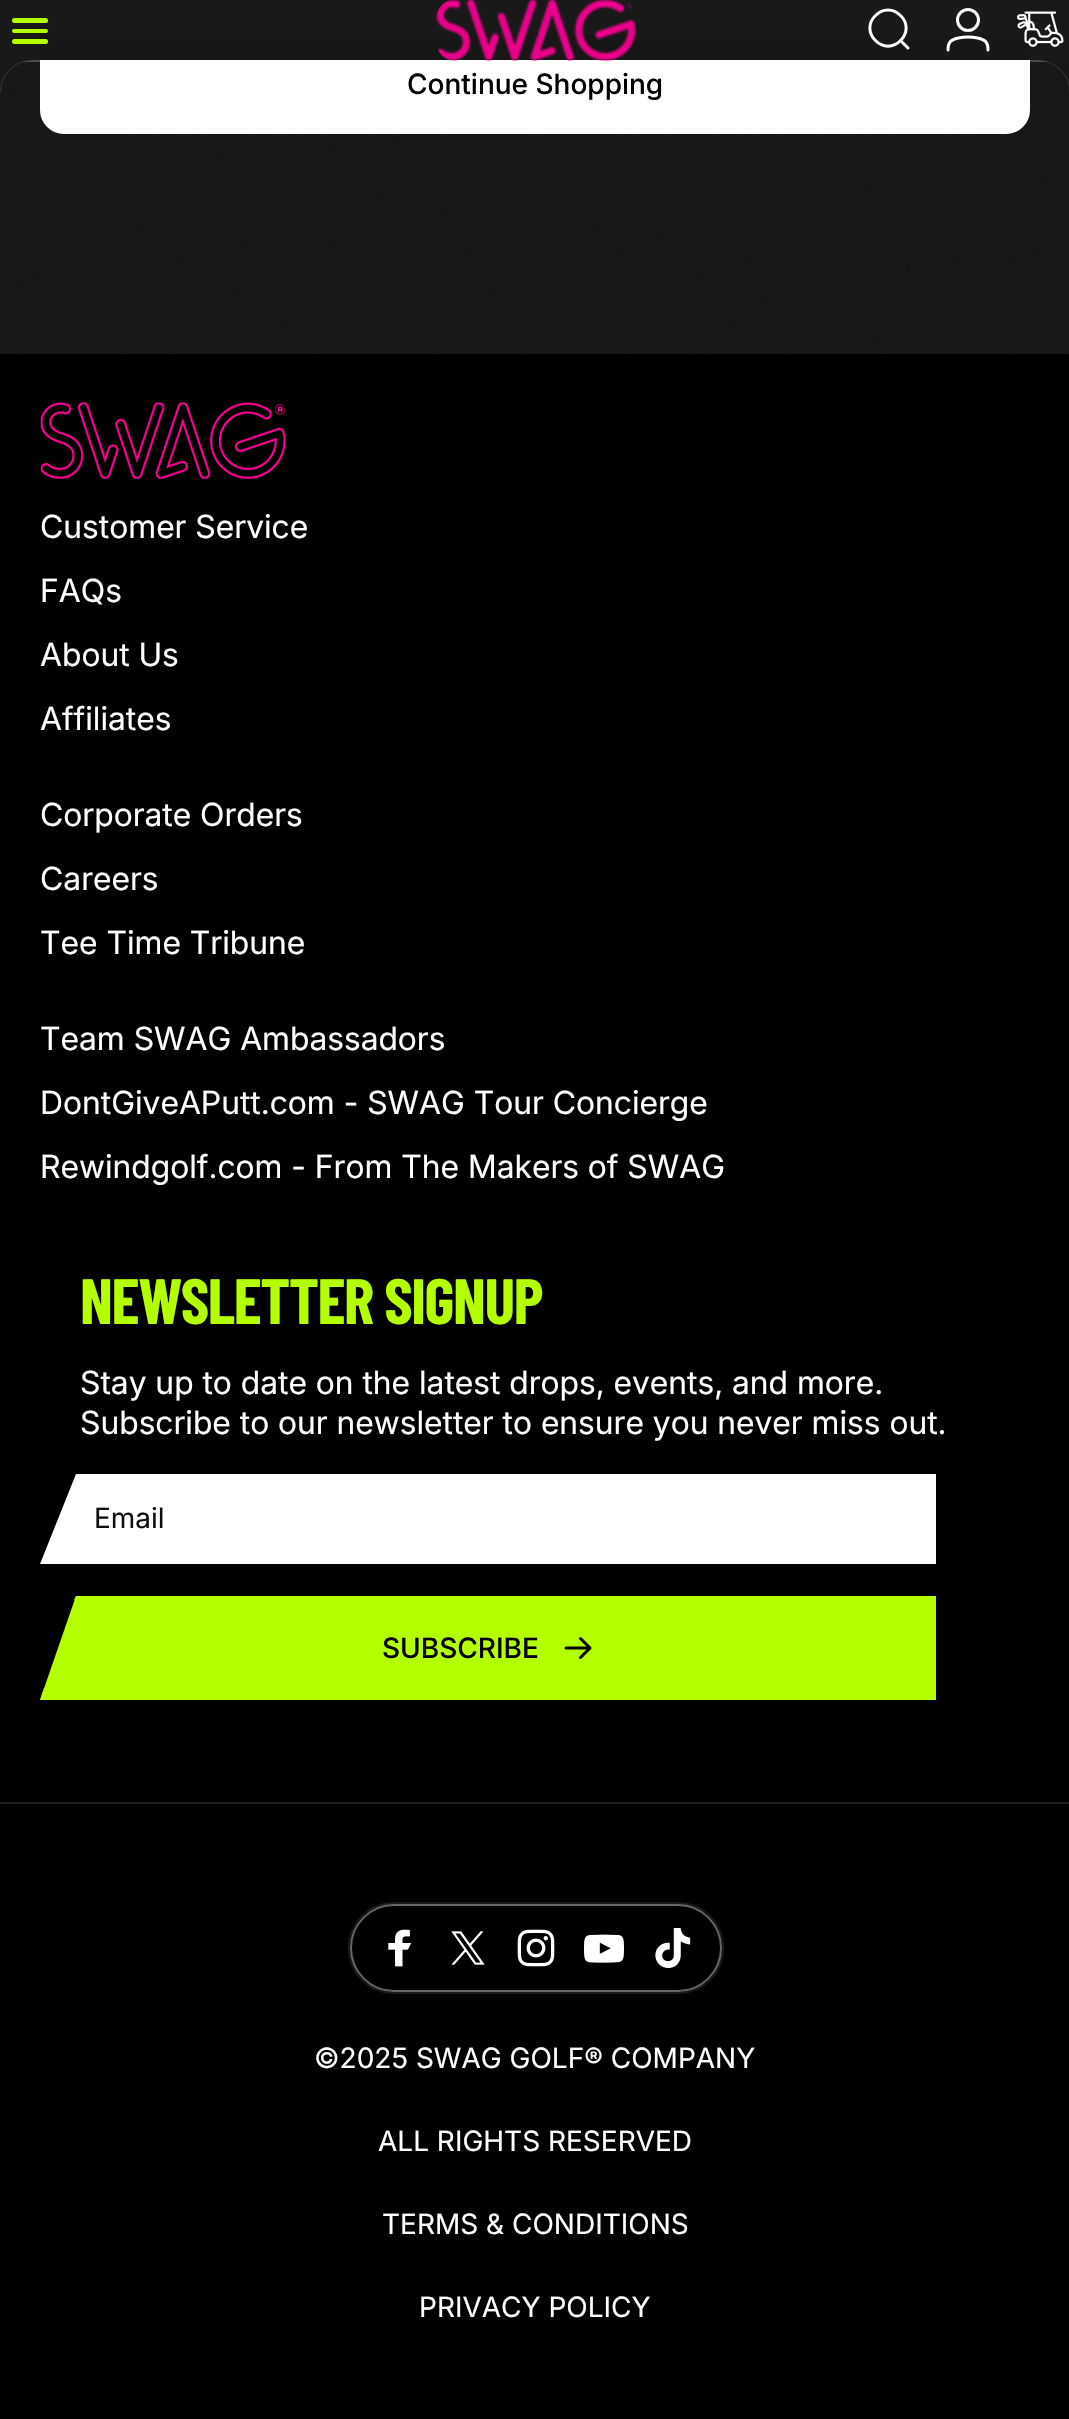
#include "include/core/SkBlurTypes.h"
#include "include/core/SkCanvas.h"
#include "include/core/SkData.h"
#include "include/core/SkFont.h"
#include "include/core/SkFontMgr.h"
#include "include/core/SkImage.h"
#include "include/core/SkMaskFilter.h"
#include "include/core/SkPaint.h"
#include "include/core/SkPathBuilder.h"
#include "include/core/SkTextBlob.h"
#include "include/effects/SkDashPathEffect.h"
#include "include/effects/SkGradientShader.h"
#include "include/utils/SkParsePath.h"

extern sk_sp<SkFontMgr> fontMgr;

static SkFont font(const char* family, int weight, float size, bool italic = false) {
    SkFontStyle style(weight, SkFontStyle::kNormal_Width,
        italic ? SkFontStyle::kItalic_Slant : SkFontStyle::kUpright_Slant);
    SkFont result(fontMgr->matchFamilyStyle(family, style), size);
    result.setSubpixel(true);
    return result;
}

static void drawLabel(SkCanvas* canvas, const char* s, float x, float y, const SkFont& font, SkColor color) {
    SkPaint ink(SkColor4f::FromColor(color));
    ink.setAntiAlias(true);
    canvas->drawString(s, x, y, font, ink);
}

static void drawTracked(SkCanvas* canvas, const char* s, float x, float y, const SkFont& font, const SkPaint& ink, float letter, float word) {
    std::vector<SkGlyphID> glyphs(font.countText(s, strlen(s), SkTextEncoding::kUTF8));
    std::vector<float> xs(glyphs.size());
    font.textToGlyphs(s, strlen(s), SkTextEncoding::kUTF8, glyphs);
    font.getXPos(glyphs, xs, x);
    float extra = 0;
    for (size_t i = 0; i < glyphs.size(); i++) {
        xs[i] += extra;
        extra += letter + word * (glyphs[i] == font.unicharToGlyph(' '));
    }
    canvas->drawTextBlob(SkTextBlob::MakeFromPosHGlyphs(glyphs, xs, y, font), 0, 0, ink);
}

static void fillRect(SkCanvas* canvas, float x, float y, float w, float h, SkColor color) {
    SkPaint ink(SkColor4f::FromColor(color));
    ink.setAntiAlias(true);
    canvas->drawRect(SkRect::MakeXYWH(x, y, w, h), ink);
}

static void fillRRect(SkCanvas* canvas, float x, float y, float w, float h, float radius, SkColor color) {
    SkPaint ink(SkColor4f::FromColor(color));
    ink.setAntiAlias(true);
    canvas->drawRoundRect(SkRect::MakeXYWH(x, y, w, h), radius, radius, ink);
}

static void drawPhoto(SkCanvas* canvas, const char* path, float x, float y, float w, float h) {
    auto image = SkImages::DeferredFromEncodedData(SkData::MakeFromFileName(path));
    canvas->drawImageRect(image, SkRect::MakeXYWH(x, y, w, h), SkSamplingOptions());
}

static SkPath parsePath(const char* data, bool evenOdd = false) {
    SkPath result = *SkParsePath::FromSVGString(data);
    if (evenOdd) result.setFillType(SkPathFillType::kEvenOdd);
    return result;
}

void draw(SkCanvas* canvas) {
    SkPaint paint;
    paint.setAntiAlias(true);
    canvas->clear(0xFF191919);
    drawPhoto(canvas, "assets/img1.png", 0, 60, 1069, 294);
    paint.setColor(0xFFFFFFFF);
    canvas->drawRoundRect(SkRect::MakeXYWH(42, 36, 986, 96), 22, 22, paint);
    paint.setStroke(true);
    paint.setStrokeWidth(4);
    canvas->drawRoundRect(SkRect::MakeXYWH(42, 36, 986, 96), 22, 22, paint);
    fillRect(canvas, 22, 60, 1026, 2, 0x1FFFFFFF);
    fillRRect(canvas, 12, 18, 36, 5, 2.5f, 0xFFB4FF00);
    fillRRect(canvas, 12, 29, 36, 4, 2, 0xFFB4FF00);
    fillRect(canvas, 40, 34, 990, 26, 0xFF171717);
    fillRRect(canvas, 12, 39, 36, 5, 2.5f, 0xFFB4FF00);
    fillRect(canvas, 22, 60, 1026, 2, 0x1CFFFFFF);
    drawPhoto(canvas, "assets/img2.png", 436, 0, 200, 61);
    paint.setStrokeWidth(3);
    paint.setStrokeCap(SkPaint::kRound_Cap);
    canvas->drawPath(parsePath("M908 48L900.5 40.5M900.5 40.5C908 33.5 908 22.5 900.5 15.5C893.5 8 882.5 8 875.5 15.5C868 22.5 868 33.5 875.5 40.5C882.5 48 893.5 48 900.5 40.5Z"), paint);
    paint.setStrokeCap(SkPaint::kButt_Cap);
    canvas->drawCircle(968, 20, 10.5f, paint);
    paint.setStrokeCap(SkPaint::kRound_Cap);
    canvas->drawPath(parsePath("M968 37C972.5 37 983 38 986 42C988 44.5 988 47 988 50M968 37C963.5 37 953 38 950 42C948 44.5 948 47 948 50"), paint);
    drawPhoto(canvas, "assets/img3.png", 1017, 11, 47, 36);
    paint.setStroke(false);
    paint.setColor(0xFF171717);
    canvas->drawPath(parsePath("M32 60H0V92H.5C.5 74.5 14.5 60.5 32 60.5Z", true), paint);
    paint.setStroke(true);
    paint.setStrokeWidth(1.1f);
    paint.setStrokeCap(SkPaint::kButt_Cap);
    paint.setColor(0x1CFFFFFF);
    canvas->drawPath(parsePath("M.5 92C.5 74.5 14.5 60.5 32 60.5"), paint);
    paint.setStroke(false);
    paint.setColor(0xFF171717);
    canvas->drawPath(parsePath("M1038 60H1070V92H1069.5C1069.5 74.5 1055.5 60.5 1038 60.5Z", true), paint);
    paint.setStroke(true);
    paint.setColor(0x1CFFFFFF);
    canvas->drawPath(parsePath("M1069.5 92C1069.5 74.5 1055.5 60.5 1038 60.5"), paint);
    SkFont font1 = font("Inter", 500, 28);
    drawLabel(canvas, "Continue Shopping", 407, 94, font1, 0xFF000000);
    fillRect(canvas, 0, 354, 1069, 2065, 0xFF000000);
    drawPhoto(canvas, "assets/img4.png", 40, 402, 246, 79);
    SkFont font2 = font("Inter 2", 400, 32);
    drawLabel(canvas, "Customer Service", 40, 538, font2, 0xFFFFFFFF);
    drawLabel(canvas, "FAQs", 40, 602, font2, 0xFFFFFFFF);
    drawLabel(canvas, "About Us", 40, 666, font2, 0xFFFFFFFF);
    drawLabel(canvas, "Affiliates", 40, 730, font2, 0xFFFFFFFF);
    drawLabel(canvas, "Corporate Orders", 40, 826, font2, 0xFFFFFFFF);
    drawLabel(canvas, "Careers", 40, 890, font2, 0xFFFFFFFF);
    drawLabel(canvas, "Tee Time Tribune", 40, 954, font2, 0xFFFFFFFF);
    drawLabel(canvas, "Team SWAG Ambassadors", 40, 1050, font2, 0xFFFFFFFF);
    drawLabel(canvas, "DontGiveAPutt.com - SWAG Tour Concierge", 40, 1114, font2, 0xFFFFFFFF);
    drawLabel(canvas, "Rewindgolf.com - From The Makers of SWAG", 40, 1178, font2, 0xFFFFFFFF);
    SkFont font3 = font("Barlow Condensed", 700, 64);
    paint.setStroke(false);
    paint.setColor(0xFFB4FF00);
    drawTracked(canvas, "NEWSLETTER SIGNUP", 80, 1324, font3, paint, -1.4f, 0);
    drawLabel(canvas, "Stay up to date on the latest drops, events, and more.", 80, 1394, font2, 0xFFFFFFFF);
    drawLabel(canvas, "Subscribe to our newsletter to ensure you never miss out.", 80, 1434, font2, 0xFFFFFFFF);
    paint.setColor(0xFFFFFFFF);
    canvas->drawPath(parsePath("M936 1564V1474H76L40 1564Z"), paint);
    SkFont font4 = font("Inter", 400, 28);
    drawLabel(canvas, "Email", 94, 1528, font4, 0xFF0E0E0E);
    paint.setColor(0xFFB4FF00);
    canvas->drawPath(parsePath("M936 1700V1596H76L40 1700Z"), paint);
    canvas->drawPath(parsePath("M936 1700V1596H76L74 1600H932V1696H44V1688L40 1700Z"), paint);
    drawLabel(canvas, "SUBSCRIBE", 382, 1658, font1, 0xFF000000);
    paint.setStroke(true);
    paint.setStrokeWidth(3);
    paint.setStrokeCap(SkPaint::kRound_Cap);
    paint.setStrokeJoin(SkPaint::kRound_Join);
    paint.setColor(0xFF000000);
    canvas->drawPath(parsePath("M566 1648H590M590 1648L580.5 1638.5M590 1648L580.5 1657.5"), paint);
    fillRect(canvas, 0, 1802, 1069, 2, 0xFF1F1F1F);
    paint.setStrokeWidth(2);
    paint.setStrokeCap(SkPaint::kButt_Cap);
    paint.setStrokeJoin(SkPaint::kMiter_Join);
    paint.setColor(0xFF1A1A1A);
    canvas->drawRoundRect(SkRect::MakeXYWH(349, 1903, 374, 90), 45, 45, paint);
    fillRRect(canvas, 350, 1904, 372, 88, 44, 0xCC000000);
    paint.setColor(0x66FFFFFF);
    canvas->drawRoundRect(SkRect::MakeXYWH(351, 1905, 370, 86), 43, 43, paint);
    drawPhoto(canvas, "assets/img5.png", 388, 1929, 24, 38);
    drawPhoto(canvas, "assets/img6.png", 451, 1931, 34, 34);
    drawPhoto(canvas, "assets/img7.png", 517, 1929, 38, 38);
    drawPhoto(canvas, "assets/img8.png", 584, 1934, 40, 29);
    drawPhoto(canvas, "assets/img9.png", 655, 1928, 36, 40);
    drawLabel(canvas, "©2025 SWAG GOLF® COMPANY", 314, 2068, font4, 0xFFFFFFFF);
    drawLabel(canvas, "ALL RIGHTS RESERVED", 378, 2151, font4, 0xFFFFFFFF);
    drawLabel(canvas, "TERMS & CONDITIONS", 382, 2234, font4, 0xFFFFFFFF);
    drawLabel(canvas, "PRIVACY POLICY", 419, 2317, font4, 0xFFFFFFFF);
}
